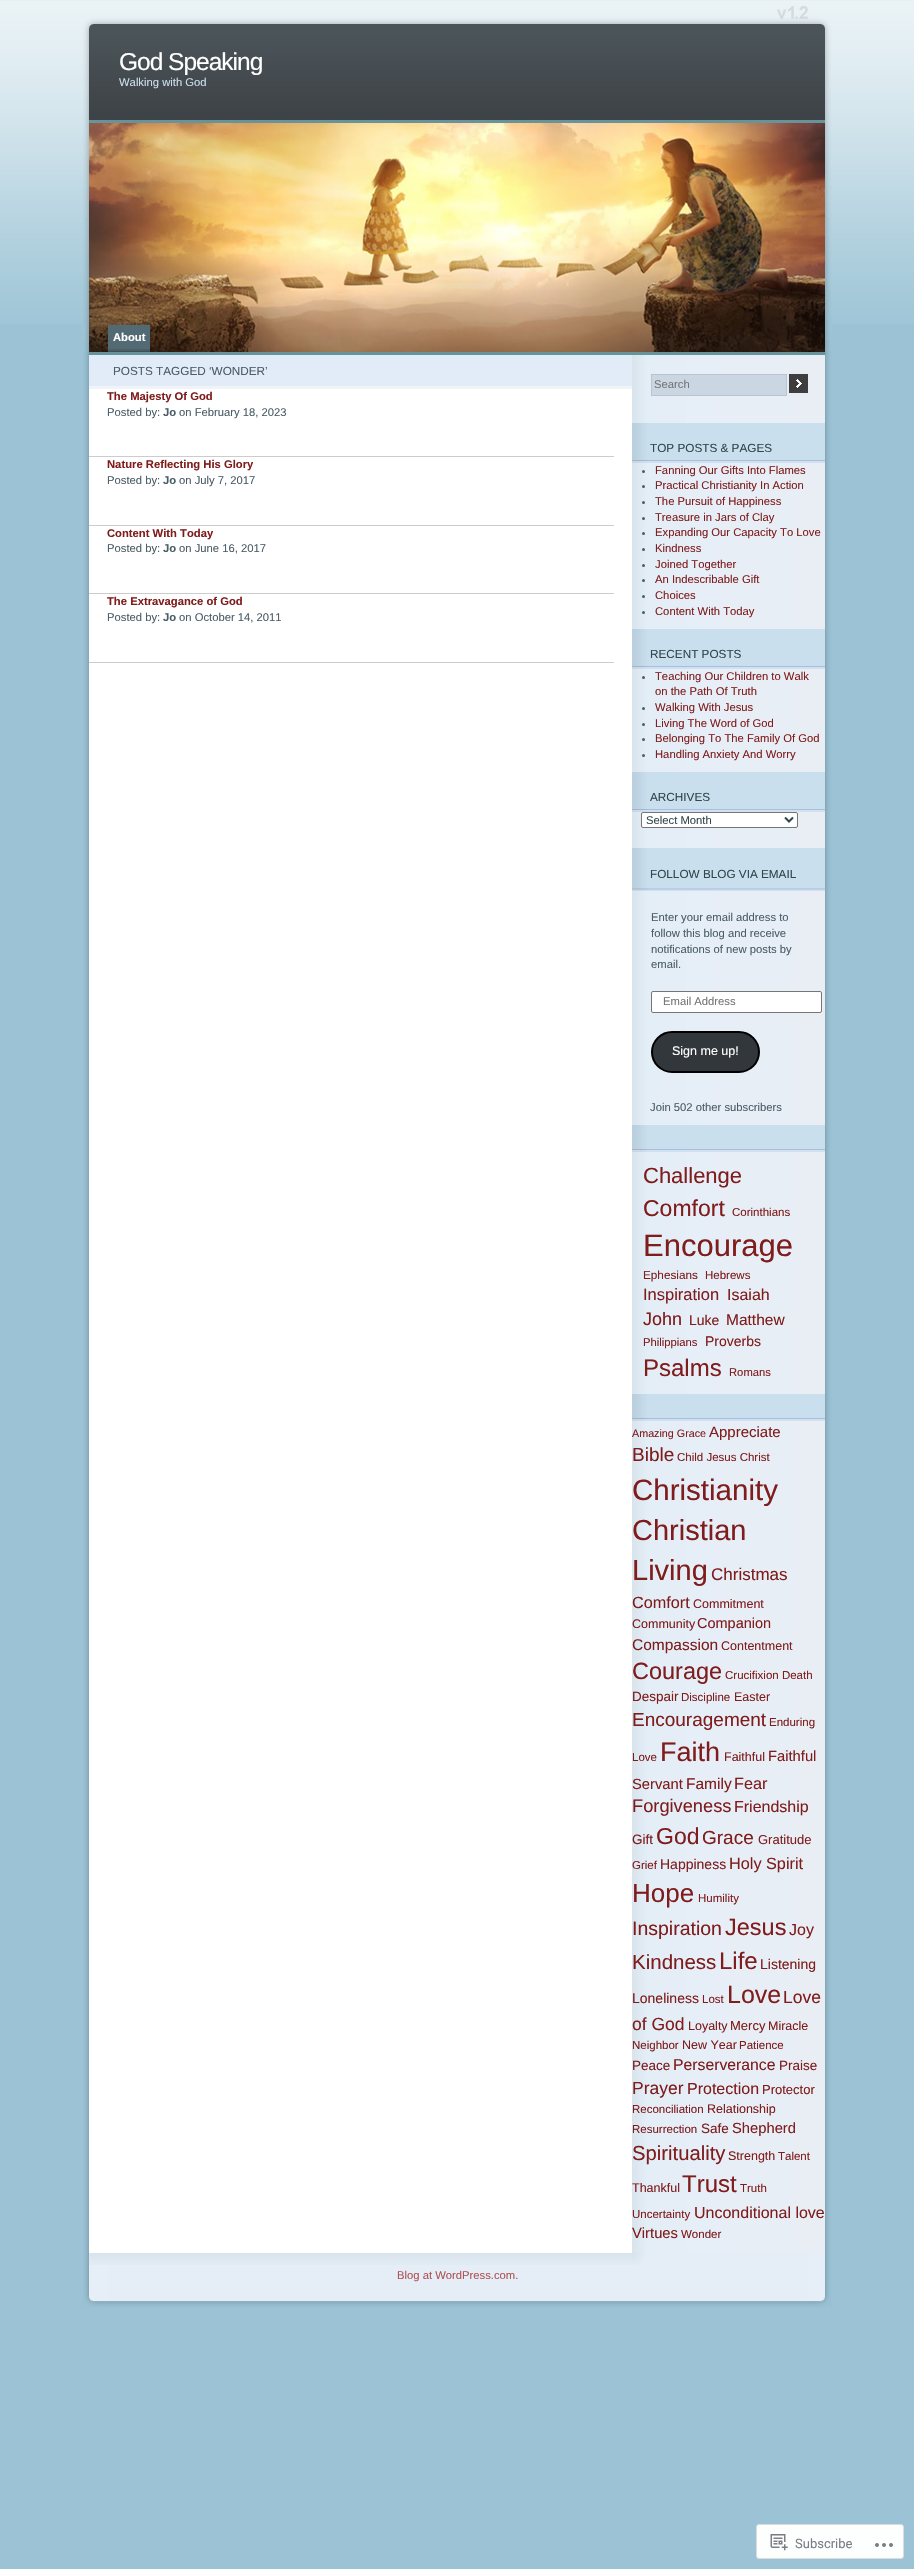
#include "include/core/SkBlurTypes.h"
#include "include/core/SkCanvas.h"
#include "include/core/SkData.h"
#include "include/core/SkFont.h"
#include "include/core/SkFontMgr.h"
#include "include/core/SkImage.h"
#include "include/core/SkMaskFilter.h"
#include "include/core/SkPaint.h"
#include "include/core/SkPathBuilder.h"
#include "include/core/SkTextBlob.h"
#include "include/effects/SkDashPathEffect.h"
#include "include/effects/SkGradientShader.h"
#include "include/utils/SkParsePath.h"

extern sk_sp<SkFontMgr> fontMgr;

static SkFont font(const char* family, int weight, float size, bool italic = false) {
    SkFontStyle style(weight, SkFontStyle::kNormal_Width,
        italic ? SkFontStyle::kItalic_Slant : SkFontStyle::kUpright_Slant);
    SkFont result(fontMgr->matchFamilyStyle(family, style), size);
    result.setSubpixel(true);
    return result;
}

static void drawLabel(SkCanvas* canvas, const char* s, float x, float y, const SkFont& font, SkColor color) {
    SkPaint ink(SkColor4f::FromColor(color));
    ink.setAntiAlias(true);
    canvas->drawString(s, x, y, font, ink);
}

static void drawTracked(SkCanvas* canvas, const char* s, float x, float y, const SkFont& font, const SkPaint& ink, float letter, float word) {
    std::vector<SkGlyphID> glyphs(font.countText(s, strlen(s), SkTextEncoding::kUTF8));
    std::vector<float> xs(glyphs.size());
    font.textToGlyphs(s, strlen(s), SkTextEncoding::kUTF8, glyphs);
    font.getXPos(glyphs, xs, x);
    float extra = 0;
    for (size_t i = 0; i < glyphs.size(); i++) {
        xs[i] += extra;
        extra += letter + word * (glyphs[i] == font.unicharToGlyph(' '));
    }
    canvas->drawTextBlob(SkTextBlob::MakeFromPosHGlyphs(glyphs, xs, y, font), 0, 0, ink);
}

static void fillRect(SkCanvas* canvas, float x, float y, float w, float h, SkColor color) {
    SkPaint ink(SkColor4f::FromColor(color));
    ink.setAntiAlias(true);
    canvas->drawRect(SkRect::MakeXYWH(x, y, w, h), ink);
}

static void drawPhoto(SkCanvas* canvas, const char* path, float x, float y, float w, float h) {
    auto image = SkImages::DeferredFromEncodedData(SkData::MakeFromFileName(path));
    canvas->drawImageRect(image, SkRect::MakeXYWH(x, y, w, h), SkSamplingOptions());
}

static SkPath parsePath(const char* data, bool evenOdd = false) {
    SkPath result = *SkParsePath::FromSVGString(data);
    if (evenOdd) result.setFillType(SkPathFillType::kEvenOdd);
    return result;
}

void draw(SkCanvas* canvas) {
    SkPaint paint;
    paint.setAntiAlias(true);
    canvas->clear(0xFF9BC3D5);
    drawPhoto(canvas, "assets/img1.png", 0, 0, 914, 324);
    drawPhoto(canvas, "assets/img2.png", 82, 350, 750, 1958);
    drawPhoto(canvas, "assets/img3.png", 82, 0, 750, 350);
    SkFont font1 = font("Liberation Sans", 400, 24.5f);
    paint.setColor(0xFFFFFFFF);
    drawTracked(canvas, "God Speaking", 119, 70, font1, paint, -1, 0);
    SkFont font2 = font("Liberation Sans", 400, 11.25f);
    drawLabel(canvas, "Walking with God", 119, 86, font2, 0xFFCADFED);
    drawPhoto(canvas, "assets/img4.png", 89, 123, 736, 229);
    fillRect(canvas, 89, 120, 736, 3, 0xFF67939B);
    fillRect(canvas, 89, 352, 736, 3, 0xFF67939B);
    fillRect(canvas, 108, 351, 42, 1, 0xFF414E53);
    fillRect(canvas, 108, 325, 42, 24, 0xFF526A74);
    fillRect(canvas, 108, 349, 42, 2, 0xFF4A5E65);
    SkFont font3 = font("Liberation Sans", 700, 11.25f);
    drawLabel(canvas, "About", 113, 341, font3, 0xFFFFFFFF);
    fillRect(canvas, 89, 355, 543, 31, 0xFFE2EBF8);
    fillRect(canvas, 89, 386, 543, 3, 0xFFF1F4F6);
    SkFont font4 = font("Liberation Sans", 400, 11.75f);
    drawLabel(canvas, "POSTS TAGGED ‘WONDER’", 113, 375, font4, 0xFF4B5D67);
    fillRect(canvas, 89, 456, 525, 1, 0xFFCCCCCC);
    drawLabel(canvas, "The Majesty Of God", 107, 400, font3, 0xFF7F1D1D);
    drawLabel(canvas, "Posted by:", 107, 416, font2, 0xFF4B5D67);
    drawLabel(canvas, "Jo", 163, 416, font3, 0xFF4B5D67);
    drawLabel(canvas, "on February 18, 2023", 179, 416, font2, 0xFF4B5D67);
    fillRect(canvas, 89, 525, 525, 1, 0xFFCCCCCC);
    drawLabel(canvas, "Nature Reflecting His Glory", 107, 468, font3, 0xFF7F1D1D);
    drawLabel(canvas, "Posted by:", 107, 484, font2, 0xFF4B5D67);
    drawLabel(canvas, "Jo", 163, 484, font3, 0xFF4B5D67);
    drawLabel(canvas, "on July 7, 2017", 179, 484, font2, 0xFF4B5D67);
    fillRect(canvas, 89, 593, 525, 1, 0xFFCCCCCC);
    drawLabel(canvas, "Content With Today", 107, 537, font3, 0xFF7F1D1D);
    drawLabel(canvas, "Posted by:", 107, 552, font2, 0xFF4B5D67);
    drawLabel(canvas, "Jo", 163, 552, font3, 0xFF4B5D67);
    drawLabel(canvas, "on June 16, 2017", 179, 552, font2, 0xFF4B5D67);
    fillRect(canvas, 89, 662, 525, 1, 0xFFCCCCCC);
    drawLabel(canvas, "The Extravagance of God", 107, 605, font3, 0xFF7F1D1D);
    drawLabel(canvas, "Posted by:", 107, 621, font2, 0xFF4B5D67);
    drawLabel(canvas, "Jo", 163, 621, font3, 0xFF4B5D67);
    drawLabel(canvas, "on October 14, 2011", 179, 621, font2, 0xFF4B5D67);
    paint.setColor(0xFFCAD6E1);
    canvas->drawRect(SkRect::MakeXYWH(651.5f, 374.5f, 135, 21), paint);
    paint.setStroke(true);
    paint.setStrokeWidth(1);
    paint.setColor(0xFFB9C3D1);
    canvas->drawRect(SkRect::MakeXYWH(651.5f, 374.5f, 135, 21), paint);
    drawLabel(canvas, "Search", 654, 388, font2, 0xFF757575);
    drawPhoto(canvas, "assets/img5.png", 789, 374, 19, 19);
    drawPhoto(canvas, "assets/img6.png", 632, 423, 193, 40);
    drawLabel(canvas, "TOP POSTS & PAGES", 650, 452, font4, 0xFF32474B);
    paint.setStroke(false);
    paint.setColor(0xFF4B5D67);
    canvas->drawCircle(643.5f, 471.5f, 1.5f, paint);
    drawLabel(canvas, "Fanning Our Gifts Into Flames", 655, 474, font2, 0xFF7F1D1D);
    canvas->drawCircle(643.5f, 486.5f, 1.5f, paint);
    drawLabel(canvas, "Practical Christianity In Action", 655, 489, font2, 0xFF7F1D1D);
    canvas->drawCircle(643.5f, 502.5f, 1.5f, paint);
    drawLabel(canvas, "The Pursuit of Happiness", 655, 505, font2, 0xFF7F1D1D);
    canvas->drawCircle(643.5f, 518.5f, 1.5f, paint);
    drawLabel(canvas, "Treasure in Jars of Clay", 655, 521, font2, 0xFF7F1D1D);
    canvas->drawCircle(643.5f, 533.5f, 1.5f, paint);
    drawLabel(canvas, "Expanding Our Capacity To Love", 655, 536, font2, 0xFF7F1D1D);
    canvas->drawCircle(643.5f, 549.5f, 1.5f, paint);
    drawLabel(canvas, "Kindness", 655, 552, font2, 0xFF7F1D1D);
    canvas->drawCircle(643.5f, 565.5f, 1.5f, paint);
    drawLabel(canvas, "Joined Together", 655, 568, font2, 0xFF7F1D1D);
    canvas->drawCircle(643.5f, 580.5f, 1.5f, paint);
    drawLabel(canvas, "An Indescribable Gift", 655, 583, font2, 0xFF7F1D1D);
    canvas->drawCircle(643.5f, 596.5f, 1.5f, paint);
    drawLabel(canvas, "Choices", 655, 599, font2, 0xFF7F1D1D);
    canvas->drawCircle(643.5f, 612.5f, 1.5f, paint);
    drawLabel(canvas, "Content With Today", 655, 615, font2, 0xFF7F1D1D);
    drawPhoto(canvas, "assets/img6.png", 632, 629, 193, 40);
    drawLabel(canvas, "RECENT POSTS", 650, 658, font4, 0xFF32474B);
    canvas->drawCircle(643.5f, 677.5f, 1.5f, paint);
    drawLabel(canvas, "Teaching Our Children to Walk", 655, 680, font2, 0xFF7F1D1D);
    drawLabel(canvas, "on the Path Of Truth", 655, 695, font2, 0xFF7F1D1D);
    canvas->drawCircle(643.5f, 708.5f, 1.5f, paint);
    drawLabel(canvas, "Walking With Jesus", 655, 711, font2, 0xFF7F1D1D);
    canvas->drawCircle(643.5f, 724.5f, 1.5f, paint);
    drawLabel(canvas, "Living The Word of God", 655, 727, font2, 0xFF7F1D1D);
    canvas->drawCircle(643.5f, 739.5f, 1.5f, paint);
    drawLabel(canvas, "Belonging To The Family Of God", 655, 742, font2, 0xFF7F1D1D);
    canvas->drawCircle(643.5f, 755.5f, 1.5f, paint);
    drawLabel(canvas, "Handling Anxiety And Worry", 655, 758, font2, 0xFF7F1D1D);
    drawPhoto(canvas, "assets/img6.png", 632, 772, 193, 40);
    drawLabel(canvas, "ARCHIVES", 650, 801, font4, 0xFF32474B);
    paint.setColor(0xFFFFFFFF);
    canvas->drawRoundRect(SkRect::MakeXYWH(641.5f, 812.5f, 156, 15), 1.5f, 1.5f, paint);
    paint.setStroke(true);
    paint.setColor(0xFF767676);
    canvas->drawRoundRect(SkRect::MakeXYWH(641.5f, 812.5f, 156, 15), 1.5f, 1.5f, paint);
    paint.setStrokeWidth(2);
    paint.setColor(0xFF32474B);
    canvas->drawPath(parsePath("M785 817.5L789 821.5L793 817.5"), paint);
    drawLabel(canvas, "Select Month", 646, 824, font2, 0xFF32474B);
    drawPhoto(canvas, "assets/img7.png", 632, 848, 193, 43);
    drawLabel(canvas, "FOLLOW BLOG VIA EMAIL", 650, 878, font4, 0xFF32474B);
    drawLabel(canvas, "Enter your email address to", 651, 921, font2, 0xFF4B5D67);
    drawLabel(canvas, "follow this blog and receive", 651, 937, font2, 0xFF4B5D67);
    drawLabel(canvas, "notifications of new posts by", 651, 953, font2, 0xFF4B5D67);
    drawLabel(canvas, "email.", 651, 968, font2, 0xFF4B5D67);
    paint.setStroke(false);
    paint.setColor(0xFFFFFFFF);
    canvas->drawRoundRect(SkRect::MakeXYWH(651.5f, 991.5f, 170, 21), 1.5f, 1.5f, paint);
    paint.setStroke(true);
    paint.setStrokeWidth(1);
    paint.setColor(0xFF767676);
    canvas->drawRoundRect(SkRect::MakeXYWH(651.5f, 991.5f, 170, 21), 1.5f, 1.5f, paint);
    drawLabel(canvas, "Email Address", 663, 1005, font2, 0xFF757575);
    paint.setStroke(false);
    paint.setColor(0xFF32373C);
    canvas->drawRoundRect(SkRect::MakeXYWH(652, 1032, 107, 40), 20, 20, paint);
    paint.setStroke(true);
    paint.setStrokeWidth(2);
    paint.setColor(0xFF000000);
    canvas->drawRoundRect(SkRect::MakeXYWH(652, 1032, 107, 40), 20, 20, paint);
    SkFont font5 = font("Liberation Sans", 400, 12.5f);
    drawLabel(canvas, "Sign me up!", 672, 1055, font5, 0xFFFFFFFF);
    drawLabel(canvas, "Join 502 other subscribers", 650, 1111, font2, 0xFF4B5D67);
    drawPhoto(canvas, "assets/img8.png", 632, 1125, 193, 27);
    SkFont font6 = font("Liberation Sans", 400, 22);
    drawLabel(canvas, "Challenge", 643, 1183, font6, 0xFF7F1D1D);
    SkFont font7 = font("Liberation Sans", 400, 23);
    drawLabel(canvas, "Comfort", 643, 1216, font7, 0xFF7F1D1D);
    SkFont font8 = font("Liberation Sans", 400, 11.5f);
    drawLabel(canvas, "Corinthians", 732, 1216, font8, 0xFF7F1D1D);
    SkFont font9 = font("Liberation Sans", 400, 31);
    drawLabel(canvas, "Encourage", 643, 1256, font9, 0xFF7F1D1D);
    drawLabel(canvas, "Ephesians", 643, 1279, font4, 0xFF7F1D1D);
    drawLabel(canvas, "Hebrews", 705, 1279, font8, 0xFF7F1D1D);
    SkFont font10 = font("Liberation Sans", 400, 16.5f);
    drawLabel(canvas, "Inspiration", 643, 1300, font10, 0xFF7F1D1D);
    SkFont font11 = font("Liberation Sans", 400, 16);
    drawLabel(canvas, "Isaiah", 727, 1300, font11, 0xFF7F1D1D);
    SkFont font12 = font("Liberation Sans", 400, 18);
    drawLabel(canvas, "John", 643, 1325, font12, 0xFF7F1D1D);
    SkFont font13 = font("Liberation Sans", 400, 14);
    drawLabel(canvas, "Luke", 689, 1325, font13, 0xFF7F1D1D);
    SkFont font14 = font("Liberation Sans", 400, 15.5f);
    drawLabel(canvas, "Matthew", 726, 1325, font14, 0xFF7F1D1D);
    drawLabel(canvas, "Philippians", 643, 1346, font2, 0xFF7F1D1D);
    drawLabel(canvas, "Proverbs", 705, 1346, font13, 0xFF7F1D1D);
    SkFont font15 = font("Liberation Sans", 400, 24);
    drawLabel(canvas, "Psalms", 643, 1376, font15, 0xFF7F1D1D);
    drawLabel(canvas, "Romans", 729, 1376, font2, 0xFF7F1D1D);
    drawPhoto(canvas, "assets/img8.png", 632, 1394, 193, 27);
    SkFont font16 = font("Liberation Sans", 400, 10.75f);
    drawLabel(canvas, "Amazing Grace", 632, 1437, font16, 0xFF7F1D1D);
    SkFont font17 = font("Liberation Sans", 400, 15);
    drawLabel(canvas, "Appreciate", 709, 1437, font17, 0xFF7F1D1D);
    SkFont font18 = font("Liberation Sans", 400, 19);
    drawLabel(canvas, "Bible", 632, 1461, font18, 0xFF7F1D1D);
    drawLabel(canvas, "Child Jesus Christ", 677, 1461, font8, 0xFF7F1D1D);
    SkFont font19 = font("Liberation Sans", 400, 29.5f);
    drawLabel(canvas, "Christianity", 632, 1500, font19, 0xFF7F1D1D);
    SkFont font20 = font("Liberation Sans", 400, 29);
    drawLabel(canvas, "Christian", 632, 1540, font20, 0xFF7F1D1D);
    drawLabel(canvas, "Living", 632, 1580, font20, 0xFF7F1D1D);
    SkFont font21 = font("Liberation Sans", 400, 17);
    drawLabel(canvas, "Christmas", 711, 1580, font21, 0xFF7F1D1D);
    SkFont font22 = font("Liberation Sans", 400, 16.25f);
    drawLabel(canvas, "Comfort", 632, 1608, font22, 0xFF7F1D1D);
    drawLabel(canvas, "Commitment", 693, 1608, font5, 0xFF7F1D1D);
    drawLabel(canvas, "Community", 632, 1628, font5, 0xFF7F1D1D);
    SkFont font23 = font("Liberation Sans", 400, 14.5f);
    drawLabel(canvas, "Companion", 697, 1628, font23, 0xFF7F1D1D);
    drawLabel(canvas, "Compassion", 632, 1650, font14, 0xFF7F1D1D);
    drawLabel(canvas, "Contentment", 721, 1650, font5, 0xFF7F1D1D);
    SkFont font24 = font("Liberation Sans", 400, 23.5f);
    drawLabel(canvas, "Courage", 632, 1679, font24, 0xFF7F1D1D);
    drawLabel(canvas, "Crucifixion Death", 725, 1679, font8, 0xFF7F1D1D);
    SkFont font25 = font("Liberation Sans", 400, 13.5f);
    drawLabel(canvas, "Despair", 632, 1701, font25, 0xFF7F1D1D);
    drawLabel(canvas, "Discipline", 681, 1701, font8, 0xFF7F1D1D);
    drawLabel(canvas, "Easter", 734, 1701, font5, 0xFF7F1D1D);
    drawLabel(canvas, "Encouragement", 632, 1726, font18, 0xFF7F1D1D);
    drawLabel(canvas, "Enduring", 769, 1726, font8, 0xFF7F1D1D);
    drawLabel(canvas, "Love", 632, 1761, font8, 0xFF7F1D1D);
    SkFont font26 = font("Liberation Sans", 400, 27);
    drawLabel(canvas, "Faith", 660, 1761, font26, 0xFF7F1D1D);
    drawLabel(canvas, "Faithful", 724, 1761, font5, 0xFF7F1D1D);
    SkFont font27 = font("Liberation Sans", 400, 14.75f);
    drawLabel(canvas, "Faithful", 768, 1761, font27, 0xFF7F1D1D);
    drawLabel(canvas, "Servant", 632, 1789, font27, 0xFF7F1D1D);
    drawLabel(canvas, "Family", 686, 1789, font14, 0xFF7F1D1D);
    drawLabel(canvas, "Fear", 734, 1789, font22, 0xFF7F1D1D);
    SkFont font28 = font("Liberation Sans", 400, 18.25f);
    drawLabel(canvas, "Forgiveness", 632, 1812, font28, 0xFF7F1D1D);
    drawLabel(canvas, "Friendship", 734, 1812, font11, 0xFF7F1D1D);
    drawLabel(canvas, "Gift", 632, 1844, font25, 0xFF7F1D1D);
    drawLabel(canvas, "God", 656, 1844, font7, 0xFF7F1D1D);
    drawLabel(canvas, "Grace", 702, 1844, font18, 0xFF7F1D1D);
    SkFont font29 = font("Liberation Sans", 400, 13);
    drawLabel(canvas, "Gratitude", 758, 1844, font29, 0xFF7F1D1D);
    drawLabel(canvas, "Grief", 632, 1869, font8, 0xFF7F1D1D);
    drawLabel(canvas, "Happiness", 660, 1869, font13, 0xFF7F1D1D);
    drawLabel(canvas, "Holy Spirit", 729, 1869, font22, 0xFF7F1D1D);
    SkFont font30 = font("Liberation Sans", 400, 26);
    drawLabel(canvas, "Hope", 632, 1902, font30, 0xFF7F1D1D);
    drawLabel(canvas, "Humility", 698, 1902, font8, 0xFF7F1D1D);
    SkFont font31 = font("Liberation Sans", 400, 19.5f);
    drawLabel(canvas, "Inspiration", 632, 1935, font31, 0xFF7F1D1D);
    drawLabel(canvas, "Jesus", 725, 1935, font24, 0xFF7F1D1D);
    drawLabel(canvas, "Joy", 789, 1935, font11, 0xFF7F1D1D);
    SkFont font32 = font("Liberation Sans", 400, 20.5f);
    drawLabel(canvas, "Kindness", 632, 1969, font32, 0xFF7F1D1D);
    drawLabel(canvas, "Life", 719, 1969, font15, 0xFF7F1D1D);
    drawLabel(canvas, "Listening", 760, 1969, font13, 0xFF7F1D1D);
    drawLabel(canvas, "Loneliness", 632, 2003, font13, 0xFF7F1D1D);
    drawLabel(canvas, "Lost", 702, 2003, font8, 0xFF7F1D1D);
    SkFont font33 = font("Liberation Sans", 400, 25);
    drawLabel(canvas, "Love", 727, 2003, font33, 0xFF7F1D1D);
    SkFont font34 = font("Liberation Sans", 400, 17.5f);
    drawLabel(canvas, "Love", 783, 2003, font34, 0xFF7F1D1D);
    drawLabel(canvas, "of God", 632, 2030, font34, 0xFF7F1D1D);
    drawLabel(canvas, "Loyalty", 688, 2030, font5, 0xFF7F1D1D);
    drawLabel(canvas, "Mercy", 730, 2030, font29, 0xFF7F1D1D);
    drawLabel(canvas, "Miracle", 768, 2030, font5, 0xFF7F1D1D);
    drawLabel(canvas, "Neighbor", 632, 2049, font8, 0xFF7F1D1D);
    drawLabel(canvas, "New Year", 682, 2049, font5, 0xFF7F1D1D);
    drawLabel(canvas, "Patience", 739, 2049, font8, 0xFF7F1D1D);
    drawLabel(canvas, "Peace", 632, 2070, font25, 0xFF7F1D1D);
    SkFont font35 = font("Liberation Sans", 400, 15.75f);
    drawLabel(canvas, "Perserverance", 673, 2070, font35, 0xFF7F1D1D);
    drawLabel(canvas, "Praise", 779, 2070, font25, 0xFF7F1D1D);
    drawLabel(canvas, "Prayer", 632, 2094, font34, 0xFF7F1D1D);
    drawLabel(canvas, "Protection", 687, 2094, font11, 0xFF7F1D1D);
    drawLabel(canvas, "Protector", 762, 2094, font29, 0xFF7F1D1D);
    drawLabel(canvas, "Reconciliation", 632, 2113, font8, 0xFF7F1D1D);
    drawLabel(canvas, "Relationship", 707, 2113, font5, 0xFF7F1D1D);
    drawLabel(canvas, "Resurrection", 632, 2133, font8, 0xFF7F1D1D);
    drawLabel(canvas, "Safe", 701, 2133, font25, 0xFF7F1D1D);
    drawLabel(canvas, "Shepherd", 732, 2133, font27, 0xFF7F1D1D);
    SkFont font36 = font("Liberation Sans", 400, 20.25f);
    drawLabel(canvas, "Spirituality", 632, 2160, font36, 0xFF7F1D1D);
    drawLabel(canvas, "Strength", 728, 2160, font5, 0xFF7F1D1D);
    drawLabel(canvas, "Talent", 778, 2160, font8, 0xFF7F1D1D);
    drawLabel(canvas, "Thankful", 632, 2192, font5, 0xFF7F1D1D);
    drawLabel(canvas, "Trust", 682, 2192, font15, 0xFF7F1D1D);
    drawLabel(canvas, "Truth", 740, 2192, font8, 0xFF7F1D1D);
    drawLabel(canvas, "Uncertainty", 632, 2218, font8, 0xFF7F1D1D);
    drawLabel(canvas, "Unconditional love", 694, 2218, font11, 0xFF7F1D1D);
    drawLabel(canvas, "Virtues", 632, 2238, font27, 0xFF7F1D1D);
    drawLabel(canvas, "Wonder", 681, 2238, font8, 0xFF7F1D1D);
    drawPhoto(canvas, "assets/img9.png", 84, 2253, 746, 55);
    drawPhoto(canvas, "assets/img10.png", 89, 2253, 555, 12);
    drawLabel(canvas, "Blog at WordPress.com.", 397, 2279, font2, 0xFFB05255);
    paint.setStroke(false);
    paint.setColor(0xFFFDFEFE);
    canvas->drawRoundRect(SkRect::MakeXYWH(756.5f, 2524.5f, 147, 34), 2.5f, 2.5f, paint);
    paint.setStroke(true);
    paint.setStrokeWidth(1);
    paint.setColor(0xFFDBDCDE);
    canvas->drawRoundRect(SkRect::MakeXYWH(756.5f, 2524.5f, 147, 34), 2.5f, 2.5f, paint);
    drawPhoto(canvas, "assets/img11.png", 770, 2534, 18, 17);
    SkFont font37 = font("Roboto", 400, 13);
    drawLabel(canvas, "Subscribe", 795, 2548, font37, 0xFF797D84);
    drawPhoto(canvas, "assets/img12.png", 875, 2543, 18, 4);
}
